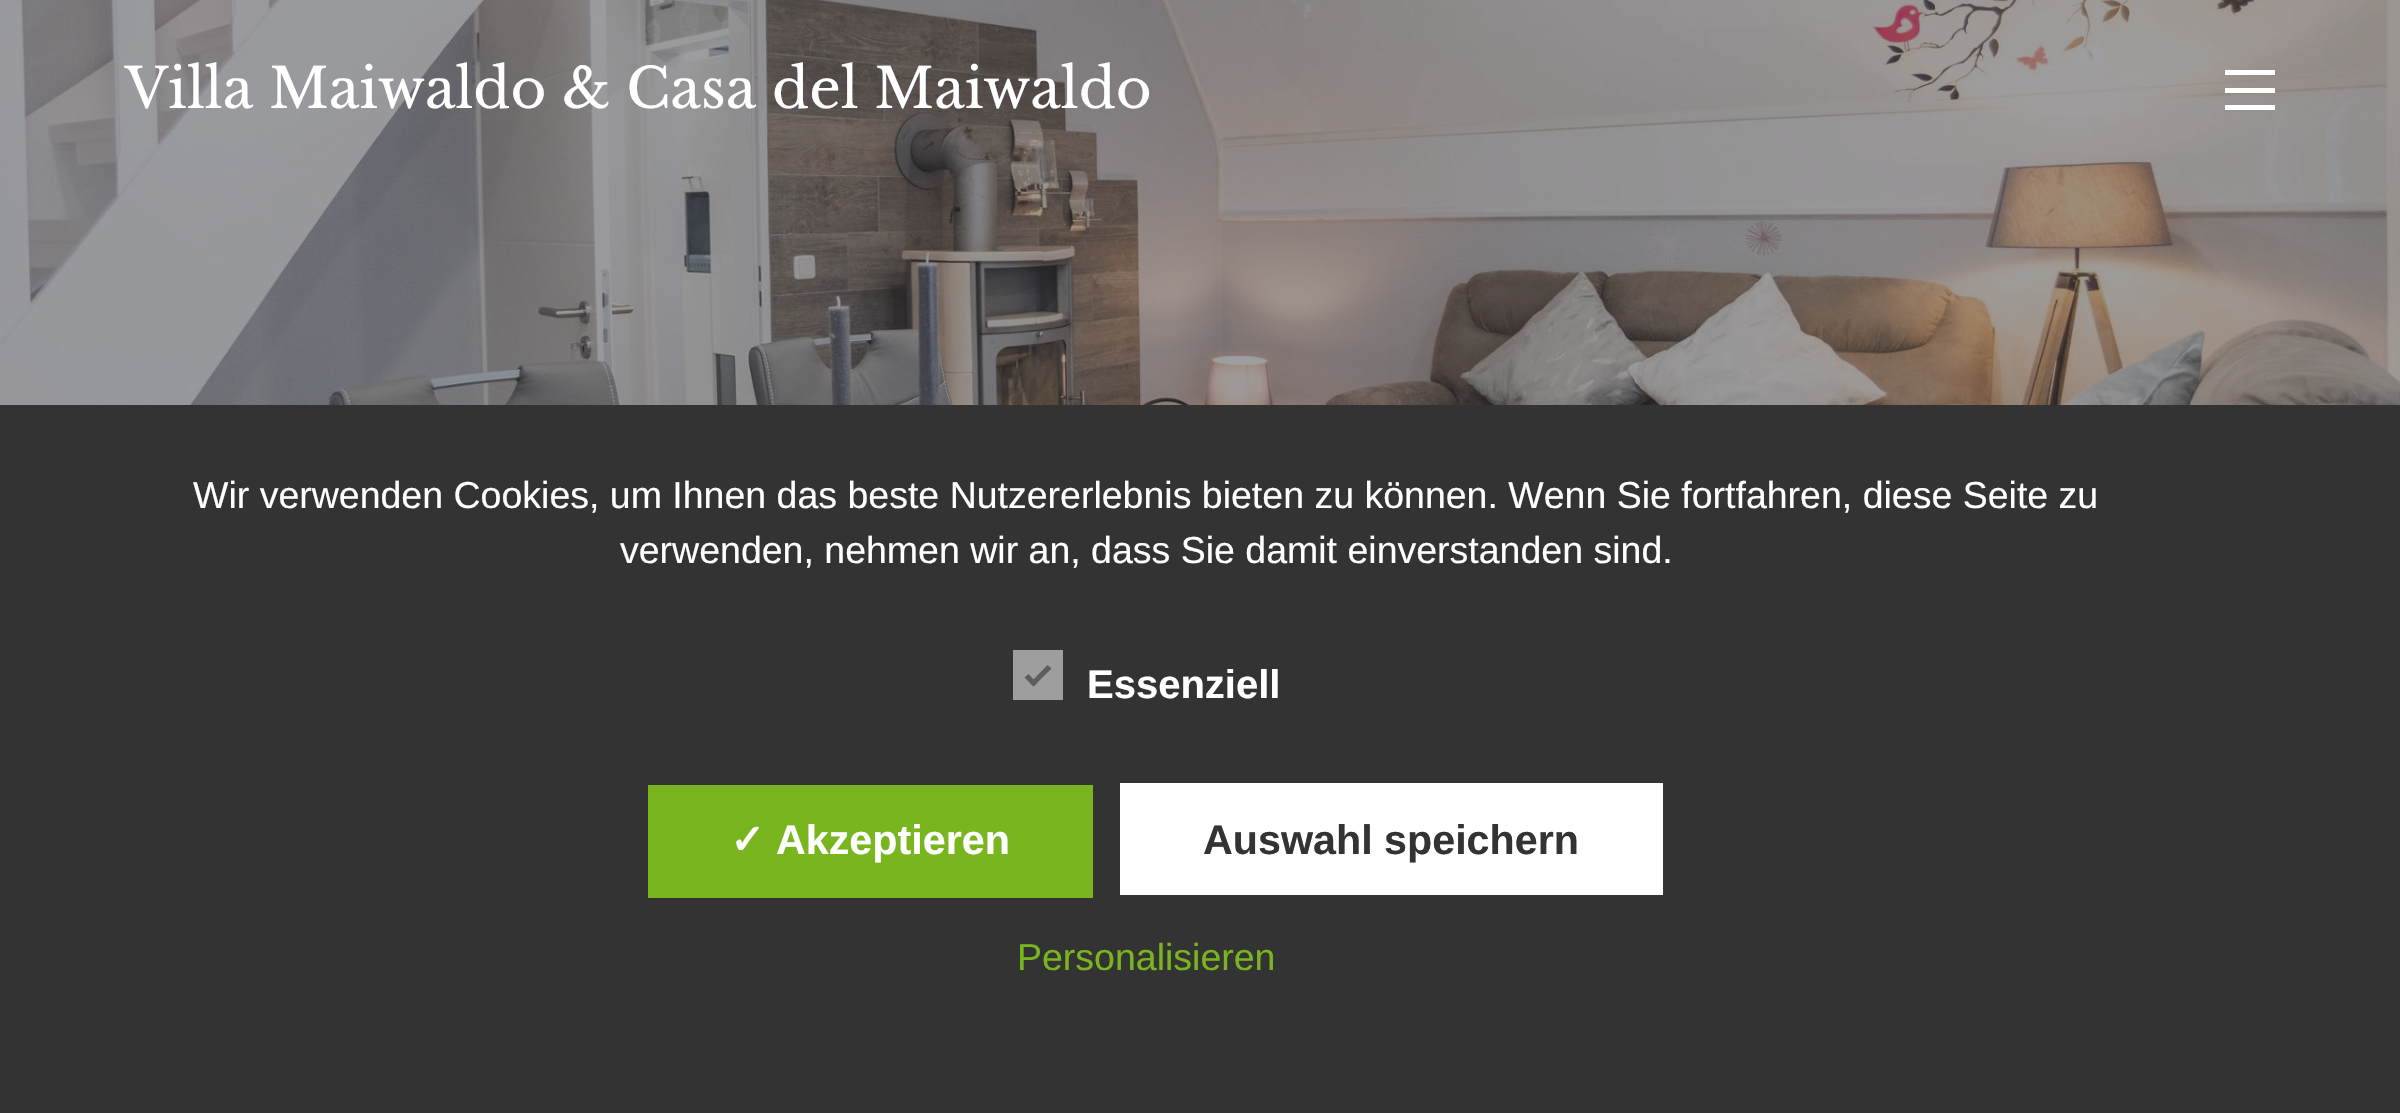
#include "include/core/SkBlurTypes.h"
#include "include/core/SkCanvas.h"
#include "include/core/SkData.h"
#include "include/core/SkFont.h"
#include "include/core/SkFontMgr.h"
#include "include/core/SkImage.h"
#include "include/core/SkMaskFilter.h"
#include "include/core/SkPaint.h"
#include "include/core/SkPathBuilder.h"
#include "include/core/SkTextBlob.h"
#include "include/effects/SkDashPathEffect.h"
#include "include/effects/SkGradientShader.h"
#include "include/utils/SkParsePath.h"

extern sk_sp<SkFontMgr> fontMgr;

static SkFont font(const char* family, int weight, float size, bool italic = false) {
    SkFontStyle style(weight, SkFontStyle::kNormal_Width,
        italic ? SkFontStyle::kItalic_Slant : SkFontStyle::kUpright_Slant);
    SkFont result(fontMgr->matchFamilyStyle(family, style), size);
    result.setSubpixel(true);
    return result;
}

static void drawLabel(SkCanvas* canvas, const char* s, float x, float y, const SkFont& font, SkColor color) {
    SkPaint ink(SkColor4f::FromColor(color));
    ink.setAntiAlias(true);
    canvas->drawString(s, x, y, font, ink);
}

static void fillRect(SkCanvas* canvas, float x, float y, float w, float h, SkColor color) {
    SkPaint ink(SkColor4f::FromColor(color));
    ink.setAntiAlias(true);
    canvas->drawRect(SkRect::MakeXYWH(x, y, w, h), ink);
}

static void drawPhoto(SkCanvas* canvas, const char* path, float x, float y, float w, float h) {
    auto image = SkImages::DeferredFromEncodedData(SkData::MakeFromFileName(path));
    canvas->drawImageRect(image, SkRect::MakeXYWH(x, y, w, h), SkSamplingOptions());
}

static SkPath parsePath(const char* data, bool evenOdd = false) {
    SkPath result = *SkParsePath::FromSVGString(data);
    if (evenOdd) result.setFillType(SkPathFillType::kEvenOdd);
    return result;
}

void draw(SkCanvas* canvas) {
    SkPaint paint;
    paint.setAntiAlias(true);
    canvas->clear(0xFFFFFFFF);
    drawPhoto(canvas, "assets/img1.png", 0, 0, 2400, 405);
    SkFont font1 = font("Libre Baskerville", 400, 55);
    drawLabel(canvas, "Villa Maiwaldo & Casa del Maiwaldo", 125, 108, font1, 0xFFFFFFFF);
    fillRect(canvas, 2225, 70, 50, 5, 0xFFFFFFFF);
    fillRect(canvas, 2225, 88, 50, 5, 0xFFFFFFFF);
    fillRect(canvas, 2225, 105, 50, 5, 0xFFFFFFFF);
    fillRect(canvas, 0, 405, 2400, 708, 0xFF333333);
    SkFont font2 = font("Liberation Sans", 400, 37.5f);
    drawLabel(canvas, "Wir verwenden Cookies, um Ihnen das beste Nutzererlebnis bieten zu können. Wenn Sie fortfahren, diese Seite zu", 193, 508, font2, 0xFFFFFFFF);
    drawLabel(canvas, "verwenden, nehmen wir an, dass Sie damit einverstanden sind.", 620, 563, font2, 0xFFFFFFFF);
    fillRect(canvas, 1013, 650, 50, 50, 0xFF9E9E9E);
    paint.setColor(0xFF5E5E5E);
    canvas->drawPath(parsePath("M1047.5 665L1051.5 668.5L1033.5 686.5L1030 683Z"), paint);
    canvas->drawPath(parsePath("M1028.5 674L1037 683L1033.5 686.5L1024.5 677.5Z"), paint);
    SkFont font3 = font("Liberation Sans", 700, 40);
    drawLabel(canvas, "Essenziell", 1087, 698, font3, 0xFFFFFFFF);
    fillRect(canvas, 648, 785, 445, 113, 0xFF79B51F);
    SkFont font4 = font("DejaVu Sans", 700, 41.25f);
    drawLabel(canvas, "✓", 730, 854, font4, 0xFFFFFFFF);
    SkFont font5 = font("Liberation Sans", 700, 41.25f);
    drawLabel(canvas, "Akzeptieren", 776, 854, font5, 0xFFFFFFFF);
    fillRect(canvas, 1120, 783, 543, 112, 0xFFFFFFFF);
    drawLabel(canvas, "Auswahl speichern", 1203, 854, font5, 0xFF333333);
    drawLabel(canvas, "Personalisieren", 1017, 970, font2, 0xFF79B51F);
}
